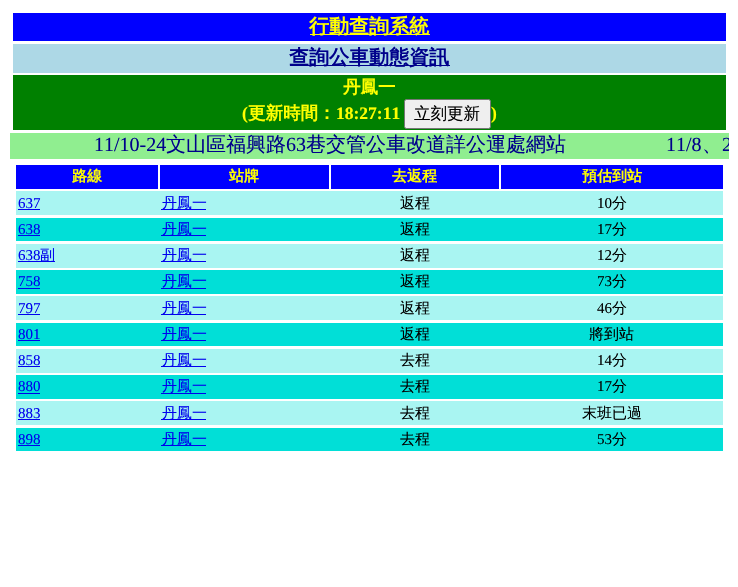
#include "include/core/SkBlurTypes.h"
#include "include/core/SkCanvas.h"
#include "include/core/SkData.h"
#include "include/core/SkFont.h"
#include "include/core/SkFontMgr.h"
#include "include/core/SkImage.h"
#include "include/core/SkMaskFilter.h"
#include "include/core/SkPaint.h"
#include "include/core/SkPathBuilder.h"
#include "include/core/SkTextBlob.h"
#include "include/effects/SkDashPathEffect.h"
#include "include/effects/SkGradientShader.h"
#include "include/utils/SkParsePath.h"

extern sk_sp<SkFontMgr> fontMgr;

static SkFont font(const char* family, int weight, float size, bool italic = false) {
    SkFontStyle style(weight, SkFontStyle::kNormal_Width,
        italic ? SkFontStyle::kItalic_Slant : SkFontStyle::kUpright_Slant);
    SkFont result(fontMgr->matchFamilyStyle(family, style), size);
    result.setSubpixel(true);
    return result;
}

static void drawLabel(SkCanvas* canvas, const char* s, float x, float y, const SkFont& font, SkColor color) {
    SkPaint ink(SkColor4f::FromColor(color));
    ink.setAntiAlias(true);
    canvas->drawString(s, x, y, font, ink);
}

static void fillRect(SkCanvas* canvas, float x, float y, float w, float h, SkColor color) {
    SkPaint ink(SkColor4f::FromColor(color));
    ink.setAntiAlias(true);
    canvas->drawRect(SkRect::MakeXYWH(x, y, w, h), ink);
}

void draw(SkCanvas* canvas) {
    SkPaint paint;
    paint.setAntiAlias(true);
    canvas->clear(0xFFFFFFFF);
    fillRect(canvas, 13, 13, 713, 28, 0xFF0000FF);
    fillRect(canvas, 310, 34, 120, 1, 0xFFFFFF00);
    SkFont font1 = font("WenQuanYi Zen Hei", 700, 20);
    drawLabel(canvas, "行動查詢系統", 309, 33, font1, 0xFFFFFF00);
    fillRect(canvas, 13, 44, 713, 29, 0xFFADD8E6);
    fillRect(canvas, 290, 65, 160, 1, 0xFF00008B);
    drawLabel(canvas, "查詢公車動態資訊", 289, 64, font1, 0xFF00008B);
    fillRect(canvas, 13, 75, 713, 55, 0xFF008000);
    SkFont font2 = font("WenQuanYi Zen Hei", 700, 17.5f);
    drawLabel(canvas, "丹鳳一", 343, 93, font2, 0xFFFFFF00);
    SkFont font3 = font("Liberation Serif", 700, 17.5f);
    drawLabel(canvas, "(", 242, 119, font3, 0xFFFFFF00);
    drawLabel(canvas, "更新時間：", 248, 119, font2, 0xFFFFFF00);
    drawLabel(canvas, "18:27:11", 336, 119, font3, 0xFFFFFF00);
    paint.setColor(0xFFEFEFEF);
    canvas->drawRoundRect(SkRect::MakeXYWH(404.5f, 99.5f, 86, 29), 2, 2, paint);
    paint.setStroke(true);
    paint.setStrokeWidth(1);
    paint.setColor(0xFF767676);
    canvas->drawRoundRect(SkRect::MakeXYWH(404.5f, 99.5f, 86, 29), 2, 2, paint);
    SkFont font4 = font("WenQuanYi Zen Hei", 500, 16.5f);
    drawLabel(canvas, "立刻更新", 414, 119, font4, 0xFF000000);
    drawLabel(canvas, ")", 491, 119, font3, 0xFFFFFF00);
    fillRect(canvas, 10, 133, 719, 26, 0xFF90EE90);
    SkFont font5 = font("Liberation Serif", 400, 20);
    drawLabel(canvas, "11/10-24", 94, 151, font5, 0xFF00008B);
    SkFont font6 = font("WenQuanYi Zen Hei", 500, 20);
    drawLabel(canvas, "文山區福興路", 166, 151, font6, 0xFF00008B);
    drawLabel(canvas, "63", 286, 151, font5, 0xFF00008B);
    drawLabel(canvas, "巷交管公車改道詳公運處網站", 306, 151, font6, 0xFF00008B);
    drawLabel(canvas, "11/8", 666, 151, font5, 0xFF00008B);
    canvas->save();
    canvas->clipRect(SkRect::MakeXYWH(10, 133, 719, 26));
    drawLabel(canvas, "2", 722, 151, font5, 0xFF00008B);
    canvas->restore();
    drawLabel(canvas, "、", 702, 151, font6, 0xFF00008B);
    fillRect(canvas, 16, 165, 142, 24, 0xFF0000FF);
    SkFont font7 = font("WenQuanYi Zen Hei", 700, 15);
    drawLabel(canvas, "路線", 72, 181, font7, 0xFFFFFF00);
    fillRect(canvas, 160, 165, 169, 24, 0xFF0000FF);
    drawLabel(canvas, "站牌", 229, 181, font7, 0xFFFFFF00);
    fillRect(canvas, 331, 165, 168, 24, 0xFF0000FF);
    drawLabel(canvas, "去返程", 392, 181, font7, 0xFFFFFF00);
    fillRect(canvas, 501, 165, 222, 24, 0xFF0000FF);
    drawLabel(canvas, "預估到站", 582, 181, font7, 0xFFFFFF00);
    fillRect(canvas, 16, 191, 707, 24, 0xFFA9F5F2);
    SkFont font8 = font("Liberation Serif", 400, 15);
    drawLabel(canvas, "637", 18, 208, font8, 0xFF0000EE);
    fillRect(canvas, 18, 209, 22, 1, 0xFF0000EE);
    fillRect(canvas, 161, 209, 45, 1, 0xFF0000EE);
    SkFont font9 = font("WenQuanYi Zen Hei", 500, 15);
    drawLabel(canvas, "丹鳳一", 162, 208, font9, 0xFF0000EE);
    drawLabel(canvas, "返程", 400, 208, font9, 0xFF000000);
    drawLabel(canvas, "10", 597, 208, font8, 0xFF000000);
    drawLabel(canvas, "分", 612, 208, font9, 0xFF000000);
    fillRect(canvas, 16, 218, 707, 23, 0xFF01DFD7);
    drawLabel(canvas, "638", 18, 234, font8, 0xFF0000EE);
    fillRect(canvas, 18, 235, 22, 1, 0xFF0000EE);
    fillRect(canvas, 161, 235, 45, 1, 0xFF0000EE);
    drawLabel(canvas, "丹鳳一", 162, 234, font9, 0xFF0000EE);
    drawLabel(canvas, "返程", 400, 234, font9, 0xFF000000);
    drawLabel(canvas, "17", 597, 234, font8, 0xFF000000);
    drawLabel(canvas, "分", 612, 234, font9, 0xFF000000);
    fillRect(canvas, 16, 244, 707, 24, 0xFFA9F5F2);
    drawLabel(canvas, "638", 18, 260, font8, 0xFF0000EE);
    fillRect(canvas, 18, 261, 37, 1, 0xFF0000EE);
    drawLabel(canvas, "副", 40, 260, font9, 0xFF0000EE);
    fillRect(canvas, 161, 261, 45, 1, 0xFF0000EE);
    drawLabel(canvas, "丹鳳一", 162, 260, font9, 0xFF0000EE);
    drawLabel(canvas, "返程", 400, 260, font9, 0xFF000000);
    drawLabel(canvas, "12", 597, 260, font8, 0xFF000000);
    drawLabel(canvas, "分", 612, 260, font9, 0xFF000000);
    fillRect(canvas, 16, 270, 707, 24, 0xFF01DFD7);
    drawLabel(canvas, "758", 18, 286, font8, 0xFF0000EE);
    fillRect(canvas, 18, 288, 22, 1, 0xFF0000EE);
    drawLabel(canvas, "丹鳳一", 162, 286, font9, 0xFF0000EE);
    fillRect(canvas, 161, 288, 45, 1, 0xFF0000EE);
    drawLabel(canvas, "返程", 400, 286, font9, 0xFF000000);
    drawLabel(canvas, "73", 597, 286, font8, 0xFF000000);
    drawLabel(canvas, "分", 612, 286, font9, 0xFF000000);
    fillRect(canvas, 16, 296, 707, 24, 0xFFA9F5F2);
    drawLabel(canvas, "797", 18, 313, font8, 0xFF0000EE);
    fillRect(canvas, 18, 314, 22, 1, 0xFF0000EE);
    fillRect(canvas, 161, 314, 45, 1, 0xFF0000EE);
    drawLabel(canvas, "丹鳳一", 162, 313, font9, 0xFF0000EE);
    drawLabel(canvas, "返程", 400, 313, font9, 0xFF000000);
    drawLabel(canvas, "46", 597, 313, font8, 0xFF000000);
    drawLabel(canvas, "分", 612, 313, font9, 0xFF000000);
    fillRect(canvas, 16, 323, 707, 23, 0xFF01DFD7);
    drawLabel(canvas, "801", 18, 339, font8, 0xFF0000EE);
    fillRect(canvas, 18, 340, 22, 1, 0xFF0000EE);
    fillRect(canvas, 161, 340, 45, 1, 0xFF0000EE);
    drawLabel(canvas, "丹鳳一", 162, 339, font9, 0xFF0000EE);
    drawLabel(canvas, "返程", 400, 339, font9, 0xFF000000);
    drawLabel(canvas, "將到站", 589, 339, font9, 0xFF000000);
    fillRect(canvas, 16, 349, 707, 24, 0xFFA9F5F2);
    drawLabel(canvas, "858", 18, 365, font8, 0xFF0000EE);
    fillRect(canvas, 18, 366, 22, 1, 0xFF0000EE);
    fillRect(canvas, 161, 366, 45, 1, 0xFF0000EE);
    drawLabel(canvas, "丹鳳一", 162, 365, font9, 0xFF0000EE);
    drawLabel(canvas, "去程", 400, 365, font9, 0xFF000000);
    drawLabel(canvas, "14", 597, 365, font8, 0xFF000000);
    drawLabel(canvas, "分", 612, 365, font9, 0xFF000000);
    fillRect(canvas, 16, 375, 707, 24, 0xFF01DFD7);
    drawLabel(canvas, "880", 18, 391, font8, 0xFF0000EE);
    fillRect(canvas, 18, 393, 22, 1, 0xFF0000EE);
    drawLabel(canvas, "丹鳳一", 162, 391, font9, 0xFF0000EE);
    fillRect(canvas, 161, 393, 45, 1, 0xFF0000EE);
    drawLabel(canvas, "去程", 400, 391, font9, 0xFF000000);
    drawLabel(canvas, "17", 597, 391, font8, 0xFF000000);
    drawLabel(canvas, "分", 612, 391, font9, 0xFF000000);
    fillRect(canvas, 16, 401, 707, 24, 0xFFA9F5F2);
    drawLabel(canvas, "883", 18, 418, font8, 0xFF0000EE);
    fillRect(canvas, 18, 419, 22, 1, 0xFF0000EE);
    fillRect(canvas, 161, 419, 45, 1, 0xFF0000EE);
    drawLabel(canvas, "丹鳳一", 162, 418, font9, 0xFF0000EE);
    drawLabel(canvas, "去程", 400, 418, font9, 0xFF000000);
    drawLabel(canvas, "末班已過", 582, 418, font9, 0xFF000000);
    fillRect(canvas, 16, 428, 707, 23, 0xFF01DFD7);
    drawLabel(canvas, "898", 18, 444, font8, 0xFF0000EE);
    fillRect(canvas, 18, 445, 22, 1, 0xFF0000EE);
    fillRect(canvas, 161, 445, 45, 1, 0xFF0000EE);
    drawLabel(canvas, "丹鳳一", 162, 444, font9, 0xFF0000EE);
    drawLabel(canvas, "去程", 400, 444, font9, 0xFF000000);
    drawLabel(canvas, "53", 597, 444, font8, 0xFF000000);
    drawLabel(canvas, "分", 612, 444, font9, 0xFF000000);
}
